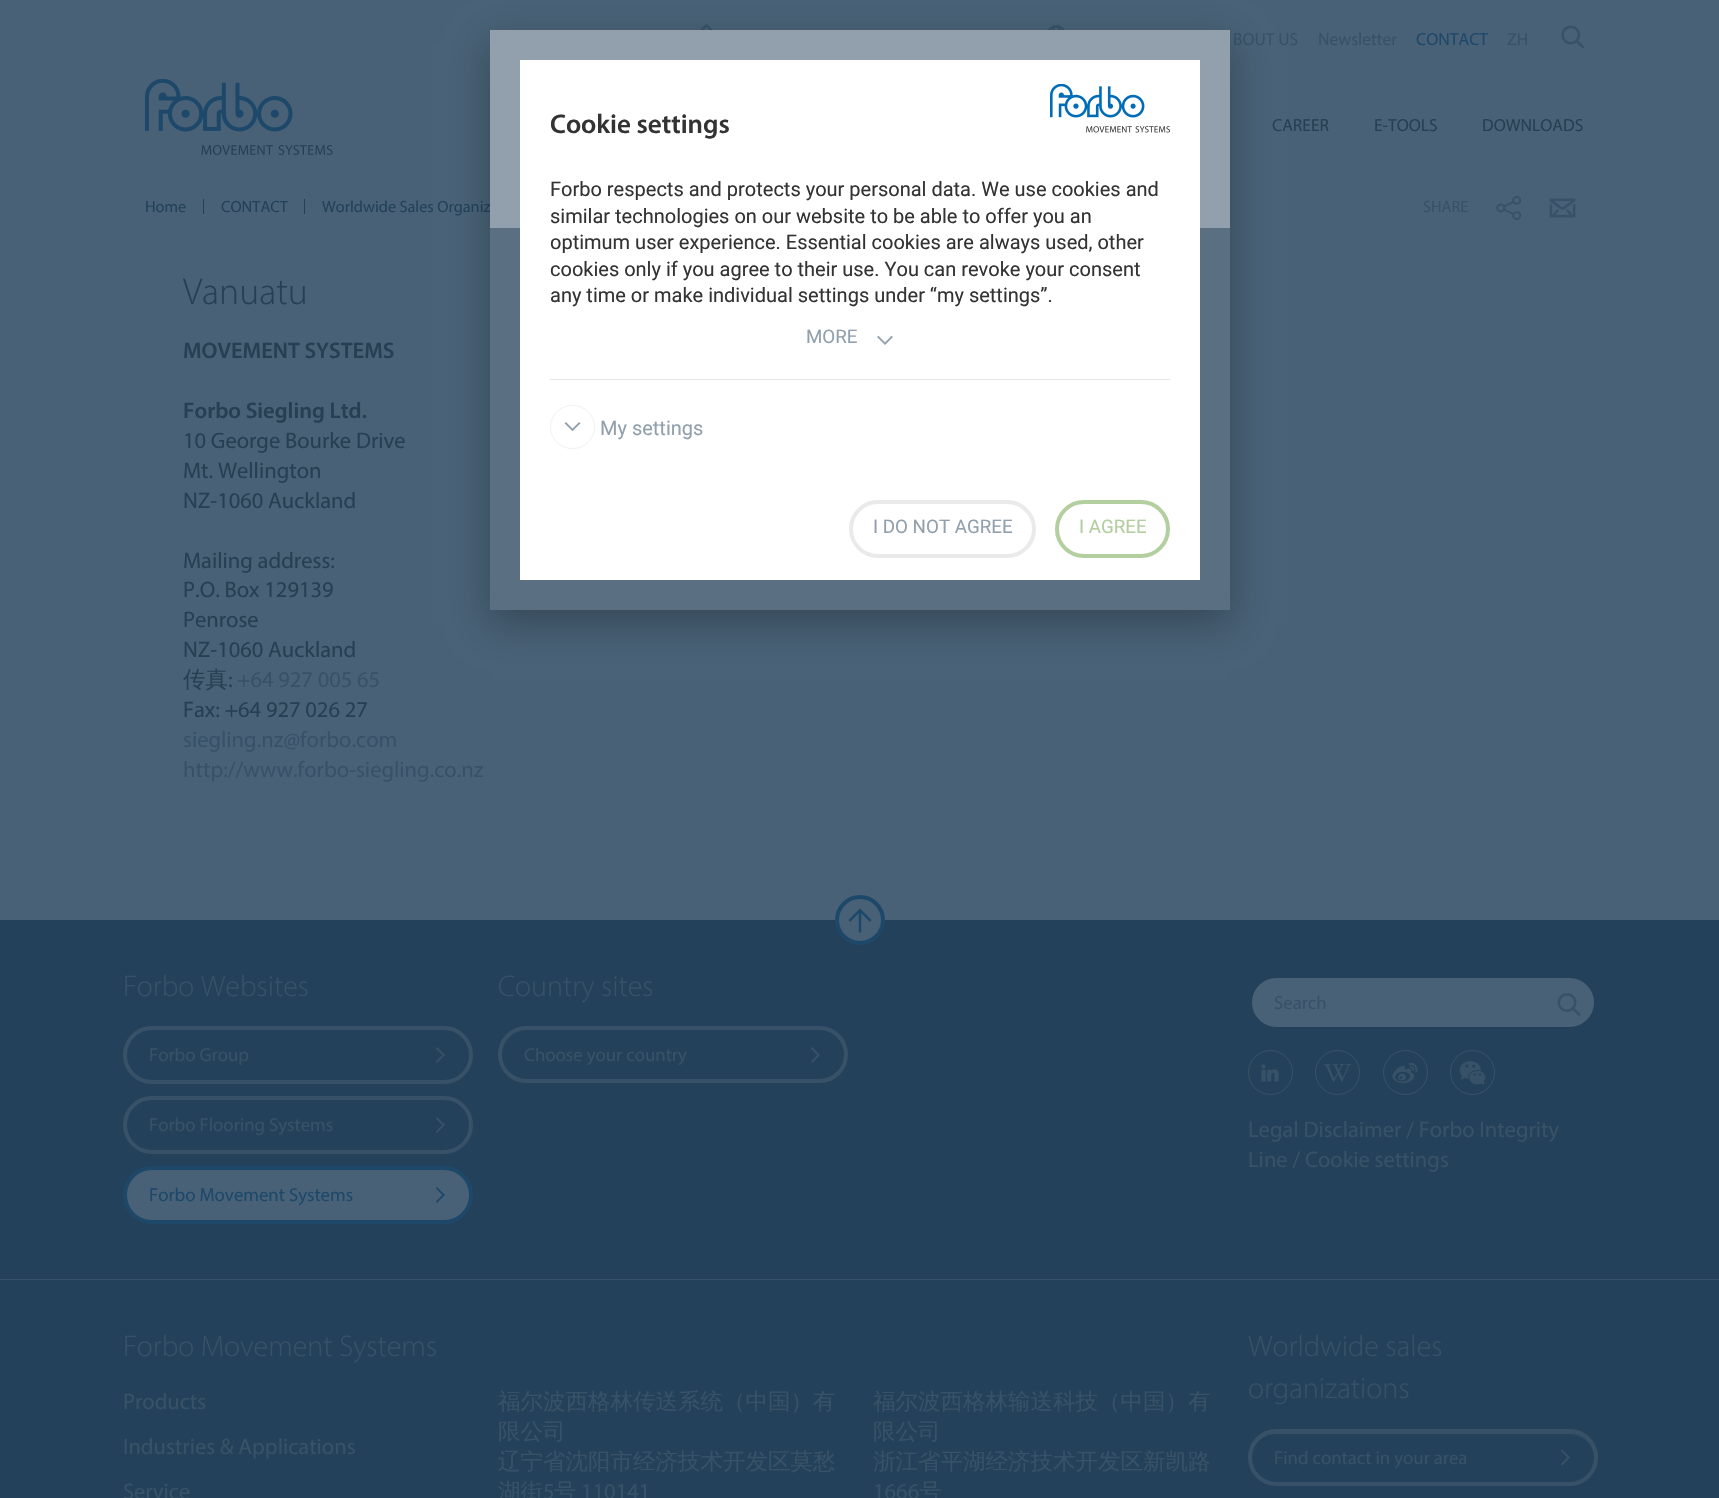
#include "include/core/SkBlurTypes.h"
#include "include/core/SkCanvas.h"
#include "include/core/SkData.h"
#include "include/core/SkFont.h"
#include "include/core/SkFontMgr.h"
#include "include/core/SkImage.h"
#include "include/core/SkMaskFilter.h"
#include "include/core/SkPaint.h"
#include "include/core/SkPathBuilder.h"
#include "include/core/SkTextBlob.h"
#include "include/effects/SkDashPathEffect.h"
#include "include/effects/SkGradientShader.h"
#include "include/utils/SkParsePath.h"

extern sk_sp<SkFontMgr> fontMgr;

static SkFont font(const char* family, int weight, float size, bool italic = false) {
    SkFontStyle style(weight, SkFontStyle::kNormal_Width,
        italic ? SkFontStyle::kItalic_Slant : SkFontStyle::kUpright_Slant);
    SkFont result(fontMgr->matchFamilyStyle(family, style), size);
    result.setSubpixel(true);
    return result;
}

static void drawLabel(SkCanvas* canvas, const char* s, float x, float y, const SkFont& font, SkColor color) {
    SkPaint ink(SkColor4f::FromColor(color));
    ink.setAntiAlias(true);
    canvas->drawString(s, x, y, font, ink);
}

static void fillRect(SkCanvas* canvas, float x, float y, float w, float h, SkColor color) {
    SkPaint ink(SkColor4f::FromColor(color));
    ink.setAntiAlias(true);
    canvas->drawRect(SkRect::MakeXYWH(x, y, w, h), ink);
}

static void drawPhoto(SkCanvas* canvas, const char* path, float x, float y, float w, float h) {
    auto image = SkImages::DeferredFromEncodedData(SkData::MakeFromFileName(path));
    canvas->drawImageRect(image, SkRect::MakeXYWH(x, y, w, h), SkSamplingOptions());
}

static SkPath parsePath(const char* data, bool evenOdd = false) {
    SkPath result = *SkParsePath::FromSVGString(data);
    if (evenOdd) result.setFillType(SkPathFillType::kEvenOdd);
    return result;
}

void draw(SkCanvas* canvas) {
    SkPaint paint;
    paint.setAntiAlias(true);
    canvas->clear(0xFF486176);
    drawPhoto(canvas, "assets/img1.png", 700, 23, 13, 7);
    drawPhoto(canvas, "assets/img2.png", 1047, 25, 18, 5);
    SkFont font1 = font("Myriad", 400, 17.5f);
    drawLabel(canvas, "BOUT US", 1233, 45, font1, 0xFF365168);
    drawLabel(canvas, "Newsletter", 1318, 45, font1, 0xFF365168);
    drawLabel(canvas, "CONTACT", 1416, 45, font1, 0xFF1D486A);
    drawLabel(canvas, "ZH", 1507, 45, font1, 0xFF365168);
    drawPhoto(canvas, "assets/img3.png", 1561, 25, 24, 24);
    drawPhoto(canvas, "assets/img4.png", 145, 79, 188, 76);
    drawLabel(canvas, "CAREER", 1272, 131, font1, 0xFF263F53);
    drawLabel(canvas, "E-TOOLS", 1374, 131, font1, 0xFF263F53);
    drawLabel(canvas, "DOWNLOADS", 1482, 131, font1, 0xFF263F53);
    SkFont font2 = font("Myriad", 400, 16.25f);
    drawLabel(canvas, "Home", 145, 212, font2, 0xFF23415A);
    fillRect(canvas, 203, 199, 1, 15, 0xFF23415A);
    drawLabel(canvas, "CONTACT", 221, 212, font2, 0xFF23415A);
    fillRect(canvas, 304, 199, 1, 15, 0xFF23415A);
    drawLabel(canvas, "Worldwide Sales Organiz", 322, 212, font2, 0xFF23415A);
    drawLabel(canvas, "SHARE", 1423, 212, font2, 0xFF365168);
    drawPhoto(canvas, "assets/img5.png", 1496, 196, 26, 24);
    drawPhoto(canvas, "assets/img6.png", 1549, 198, 27, 20);
    SkFont font3 = font("Myriad", 300, 37.5f);
    drawLabel(canvas, "Vanuatu", 183, 304, font3, 0xFF263F53);
    SkFont font4 = font("Myriad", 600, 22.5f);
    drawLabel(canvas, "MOVEMENT SYSTEMS", 183, 358, font4, 0xFF263F53);
    drawLabel(canvas, "Forbo Siegling Ltd.", 183, 418, font4, 0xFF263F53);
    SkFont font5 = font("Myriad", 400, 22.5f);
    drawLabel(canvas, "10 George Bourke Drive", 183, 448, font5, 0xFF263F53);
    drawLabel(canvas, "Mt. Wellington", 183, 478, font5, 0xFF263F53);
    drawLabel(canvas, "NZ-1060 Auckland", 183, 508, font5, 0xFF263F53);
    drawLabel(canvas, "Mailing address:", 183, 568, font5, 0xFF263F53);
    drawLabel(canvas, "P.O. Box 129139", 183, 597, font5, 0xFF263F53);
    drawLabel(canvas, "Penrose", 183, 627, font5, 0xFF263F53);
    drawLabel(canvas, "NZ-1060 Auckland", 183, 657, font5, 0xFF263F53);
    SkFont font6 = font("WenQuanYi Zen Hei", 500, 22.5f);
    drawLabel(canvas, "传真", 183, 687, font6, 0xFF263F53);
    drawLabel(canvas, ":", 228, 687, font5, 0xFF263F53);
    drawLabel(canvas, "+64 927 005 65", 237, 687, font5, 0xFF365168);
    drawLabel(canvas, "Fax: +64 927 026 27", 183, 717, font5, 0xFF263F53);
    drawLabel(canvas, "siegling.nz@forbo.com", 183, 747, font5, 0xFF365168);
    drawLabel(canvas, "http://www.forbo-siegling.co.nz", 183, 777, font5, 0xFF365168);
    fillRect(canvas, 0, 920, 1719, 359, 0xFF23415A);
    paint.setColor(0xFF486176);
    canvas->drawCircle(860, 920, 23, paint);
    paint.setStroke(true);
    paint.setStrokeWidth(4);
    paint.setColor(0xFF1D486A);
    canvas->drawCircle(860, 920, 23, paint);
    drawPhoto(canvas, "assets/img7.png", 848, 908, 24, 25);
    fillRect(canvas, 0, 1279, 1719, 1, 0xFF365168);
    SkFont font7 = font("Myriad", 300, 30);
    drawLabel(canvas, "Forbo Websites", 123, 996, font7, 0xFF365168);
    paint.setColor(0xFF365168);
    canvas->drawRoundRect(SkRect::MakeXYWH(125, 1028, 346, 54), 27, 27, paint);
    SkFont font8 = font("Myriad", 400, 18.75f);
    drawLabel(canvas, "Forbo Group", 149, 1061, font8, 0xFF365168);
    drawPhoto(canvas, "assets/img8.png", 435, 1047, 10, 16);
    canvas->drawRoundRect(SkRect::MakeXYWH(125, 1098, 346, 54), 27, 27, paint);
    drawLabel(canvas, "Forbo Flooring Systems", 149, 1131, font8, 0xFF365168);
    drawPhoto(canvas, "assets/img8.png", 435, 1117, 10, 16);
    paint.setStroke(false);
    paint.setColor(0xFF486176);
    canvas->drawRoundRect(SkRect::MakeXYWH(125, 1168, 346, 54), 27, 27, paint);
    paint.setStroke(true);
    paint.setColor(0xFF1D486A);
    canvas->drawRoundRect(SkRect::MakeXYWH(125, 1168, 346, 54), 27, 27, paint);
    drawLabel(canvas, "Forbo Movement Systems", 149, 1201, font8, 0xFF1D486A);
    drawPhoto(canvas, "assets/img9.png", 435, 1187, 10, 16);
    drawLabel(canvas, "Country sites", 498, 996, font7, 0xFF365168);
    paint.setColor(0xFF365168);
    canvas->drawRoundRect(SkRect::MakeXYWH(500, 1028, 346, 53), 26.5f, 26.5f, paint);
    drawLabel(canvas, "Choose your country", 524, 1061, font8, 0xFF365168);
    drawPhoto(canvas, "assets/img8.png", 810, 1047, 10, 16);
    paint.setStroke(false);
    paint.setColor(0xFF486176);
    canvas->drawRoundRect(SkRect::MakeXYWH(1250, 976, 346, 53), 26.5f, 26.5f, paint);
    paint.setStroke(true);
    paint.setColor(0xFF23415A);
    canvas->drawRoundRect(SkRect::MakeXYWH(1250, 976, 346, 53), 26.5f, 26.5f, paint);
    drawLabel(canvas, "Search", 1274, 1009, font8, 0xFF365168);
    drawPhoto(canvas, "assets/img10.png", 1557, 993, 24, 24);
    paint.setStrokeWidth(1);
    paint.setColor(0xFF365168);
    canvas->drawCircle(1270.5f, 1072.5f, 22, paint);
    drawPhoto(canvas, "assets/img11.png", 1261, 1064, 18, 18);
    canvas->drawCircle(1337.5f, 1072.5f, 22, paint);
    drawPhoto(canvas, "assets/img12.png", 1323, 1064, 29, 18);
    canvas->drawCircle(1405.5f, 1072.5f, 22, paint);
    drawPhoto(canvas, "assets/img13.png", 1392, 1062, 26, 21);
    canvas->drawCircle(1472.5f, 1072.5f, 22, paint);
    drawPhoto(canvas, "assets/img14.png", 1459, 1061, 27, 24);
    drawLabel(canvas, "Legal Disclaimer / Forbo Integrity", 1248, 1137, font5, 0xFF365168);
    drawLabel(canvas, "Line / Cookie settings", 1248, 1167, font5, 0xFF365168);
    fillRect(canvas, 0, 1280, 1719, 218, 0xFF23415A);
    drawLabel(canvas, "Forbo Movement Systems", 123, 1356, font7, 0xFF365168);
    drawLabel(canvas, "Products", 123, 1409, font5, 0xFF365168);
    drawLabel(canvas, "Industries & Applications", 123, 1454, font5, 0xFF365168);
    drawLabel(canvas, "Service", 123, 1499, font5, 0xFF365168);
    drawLabel(canvas, "福尔波西格林传送系统（中国）有", 498, 1409, font6, 0xFF365168);
    drawLabel(canvas, "限公司", 498, 1439, font6, 0xFF365168);
    drawLabel(canvas, "辽宁省沈阳市经济技术开发区莫愁", 498, 1469, font6, 0xFF365168);
    drawLabel(canvas, "湖街", 498, 1499, font6, 0xFF365168);
    drawLabel(canvas, "5", 543, 1499, font5, 0xFF365168);
    drawLabel(canvas, "号", 554, 1499, font6, 0xFF365168);
    drawLabel(canvas, "110141", 581, 1499, font5, 0xFF365168);
    drawLabel(canvas, "福尔波西格林输送科技（中国）有", 873, 1409, font6, 0xFF365168);
    drawLabel(canvas, "限公司", 873, 1439, font6, 0xFF365168);
    drawLabel(canvas, "浙江省平湖经济技术开发区新凯路", 873, 1469, font6, 0xFF365168);
    drawLabel(canvas, "1666", 873, 1499, font5, 0xFF365168);
    drawLabel(canvas, "号", 919, 1499, font6, 0xFF365168);
    drawLabel(canvas, "Worldwide sales", 1248, 1356, font7, 0xFF365168);
    drawLabel(canvas, "organizations", 1248, 1398, font7, 0xFF365168);
    paint.setStroke(false);
    canvas->drawPath(parsePath("M1276 1434H1569C1583 1434 1594 1445 1594 1458C1594 1445 1583 1433 1569 1433H1276C1262 1433 1251 1445 1251 1458C1251 1445 1262 1434 1276 1434Z"), paint);
    paint.setStroke(true);
    paint.setStrokeWidth(4);
    canvas->drawRoundRect(SkRect::MakeXYWH(1250, 1431, 346, 53), 26.5f, 26.5f, paint);
    drawLabel(canvas, "Find contact in your area", 1274, 1464, font8, 0xFF365168);
    drawPhoto(canvas, "assets/img15.png", 1560, 1449, 10, 17);
    paint.setStroke(false);
    paint.setColor(0x47020203);
    paint.setMaskFilter(SkMaskFilter::MakeBlur(kNormal_SkBlurStyle, 19));
    canvas->drawRect(SkRect::MakeXYWH(490, 43, 740, 580), paint);
    paint.setMaskFilter(nullptr);
    fillRect(canvas, 490, 228, 740, 382, 0xFF5B6F82);
    fillRect(canvas, 490, 30, 740, 198, 0xFF91A0AC);
    fillRect(canvas, 520, 60, 680, 520, 0xFFFFFFFF);
    drawPhoto(canvas, "assets/img16.png", 1050, 84, 120, 49);
    SkFont font9 = font("Myriad", 600, 27);
    drawLabel(canvas, "Cookie settings", 550, 133, font9, 0xFF333333);
    SkFont font10 = font("Roboto", 400, 20);
    drawLabel(canvas, "Forbo respects and protects your personal data. We use cookies and", 550, 196, font10, 0xFF333333);
    drawLabel(canvas, "similar technologies on our website to be able to offer you an", 550, 223, font10, 0xFF333333);
    drawLabel(canvas, "optimum user experience. Essential cookies are always used, other", 550, 249, font10, 0xFF333333);
    drawLabel(canvas, "cookies only if you agree to their use. You can revoke your consent", 550, 276, font10, 0xFF333333);
    drawLabel(canvas, "any time or make individual settings under “my settings”.", 550, 302, font10, 0xFF333333);
    fillRect(canvas, 550, 379, 620, 1, 0xFFE6E6E6);
    SkFont font11 = font("Roboto", 400, 18.75f);
    drawLabel(canvas, "MORE", 806, 343, font11, 0xFF91A0AC);
    drawPhoto(canvas, "assets/img17.png", 877, 335, 16, 10);
    paint.setStroke(true);
    paint.setStrokeWidth(1);
    paint.setColor(0xFFEFF2F3);
    canvas->drawRoundRect(SkRect::MakeXYWH(550.5f, 405.5f, 44, 43), 21.5f, 21.5f, paint);
    drawPhoto(canvas, "assets/img18.png", 564, 422, 17, 10);
    drawLabel(canvas, "My settings", 600, 435, font10, 0xFF91A0AC);
    paint.setStrokeWidth(4);
    paint.setColor(0xFFEAEAEA);
    canvas->drawRoundRect(SkRect::MakeXYWH(851, 502, 183, 54), 27, 27, paint);
    drawLabel(canvas, "I DO NOT AGREE", 873, 533, font11, 0xFF91A0AC);
    paint.setColor(0xFFB3CE9F);
    canvas->drawRoundRect(SkRect::MakeXYWH(1057, 502, 111, 54), 27, 27, paint);
    drawLabel(canvas, "I AGREE", 1079, 533, font11, 0xFFB3CE9F);
}
